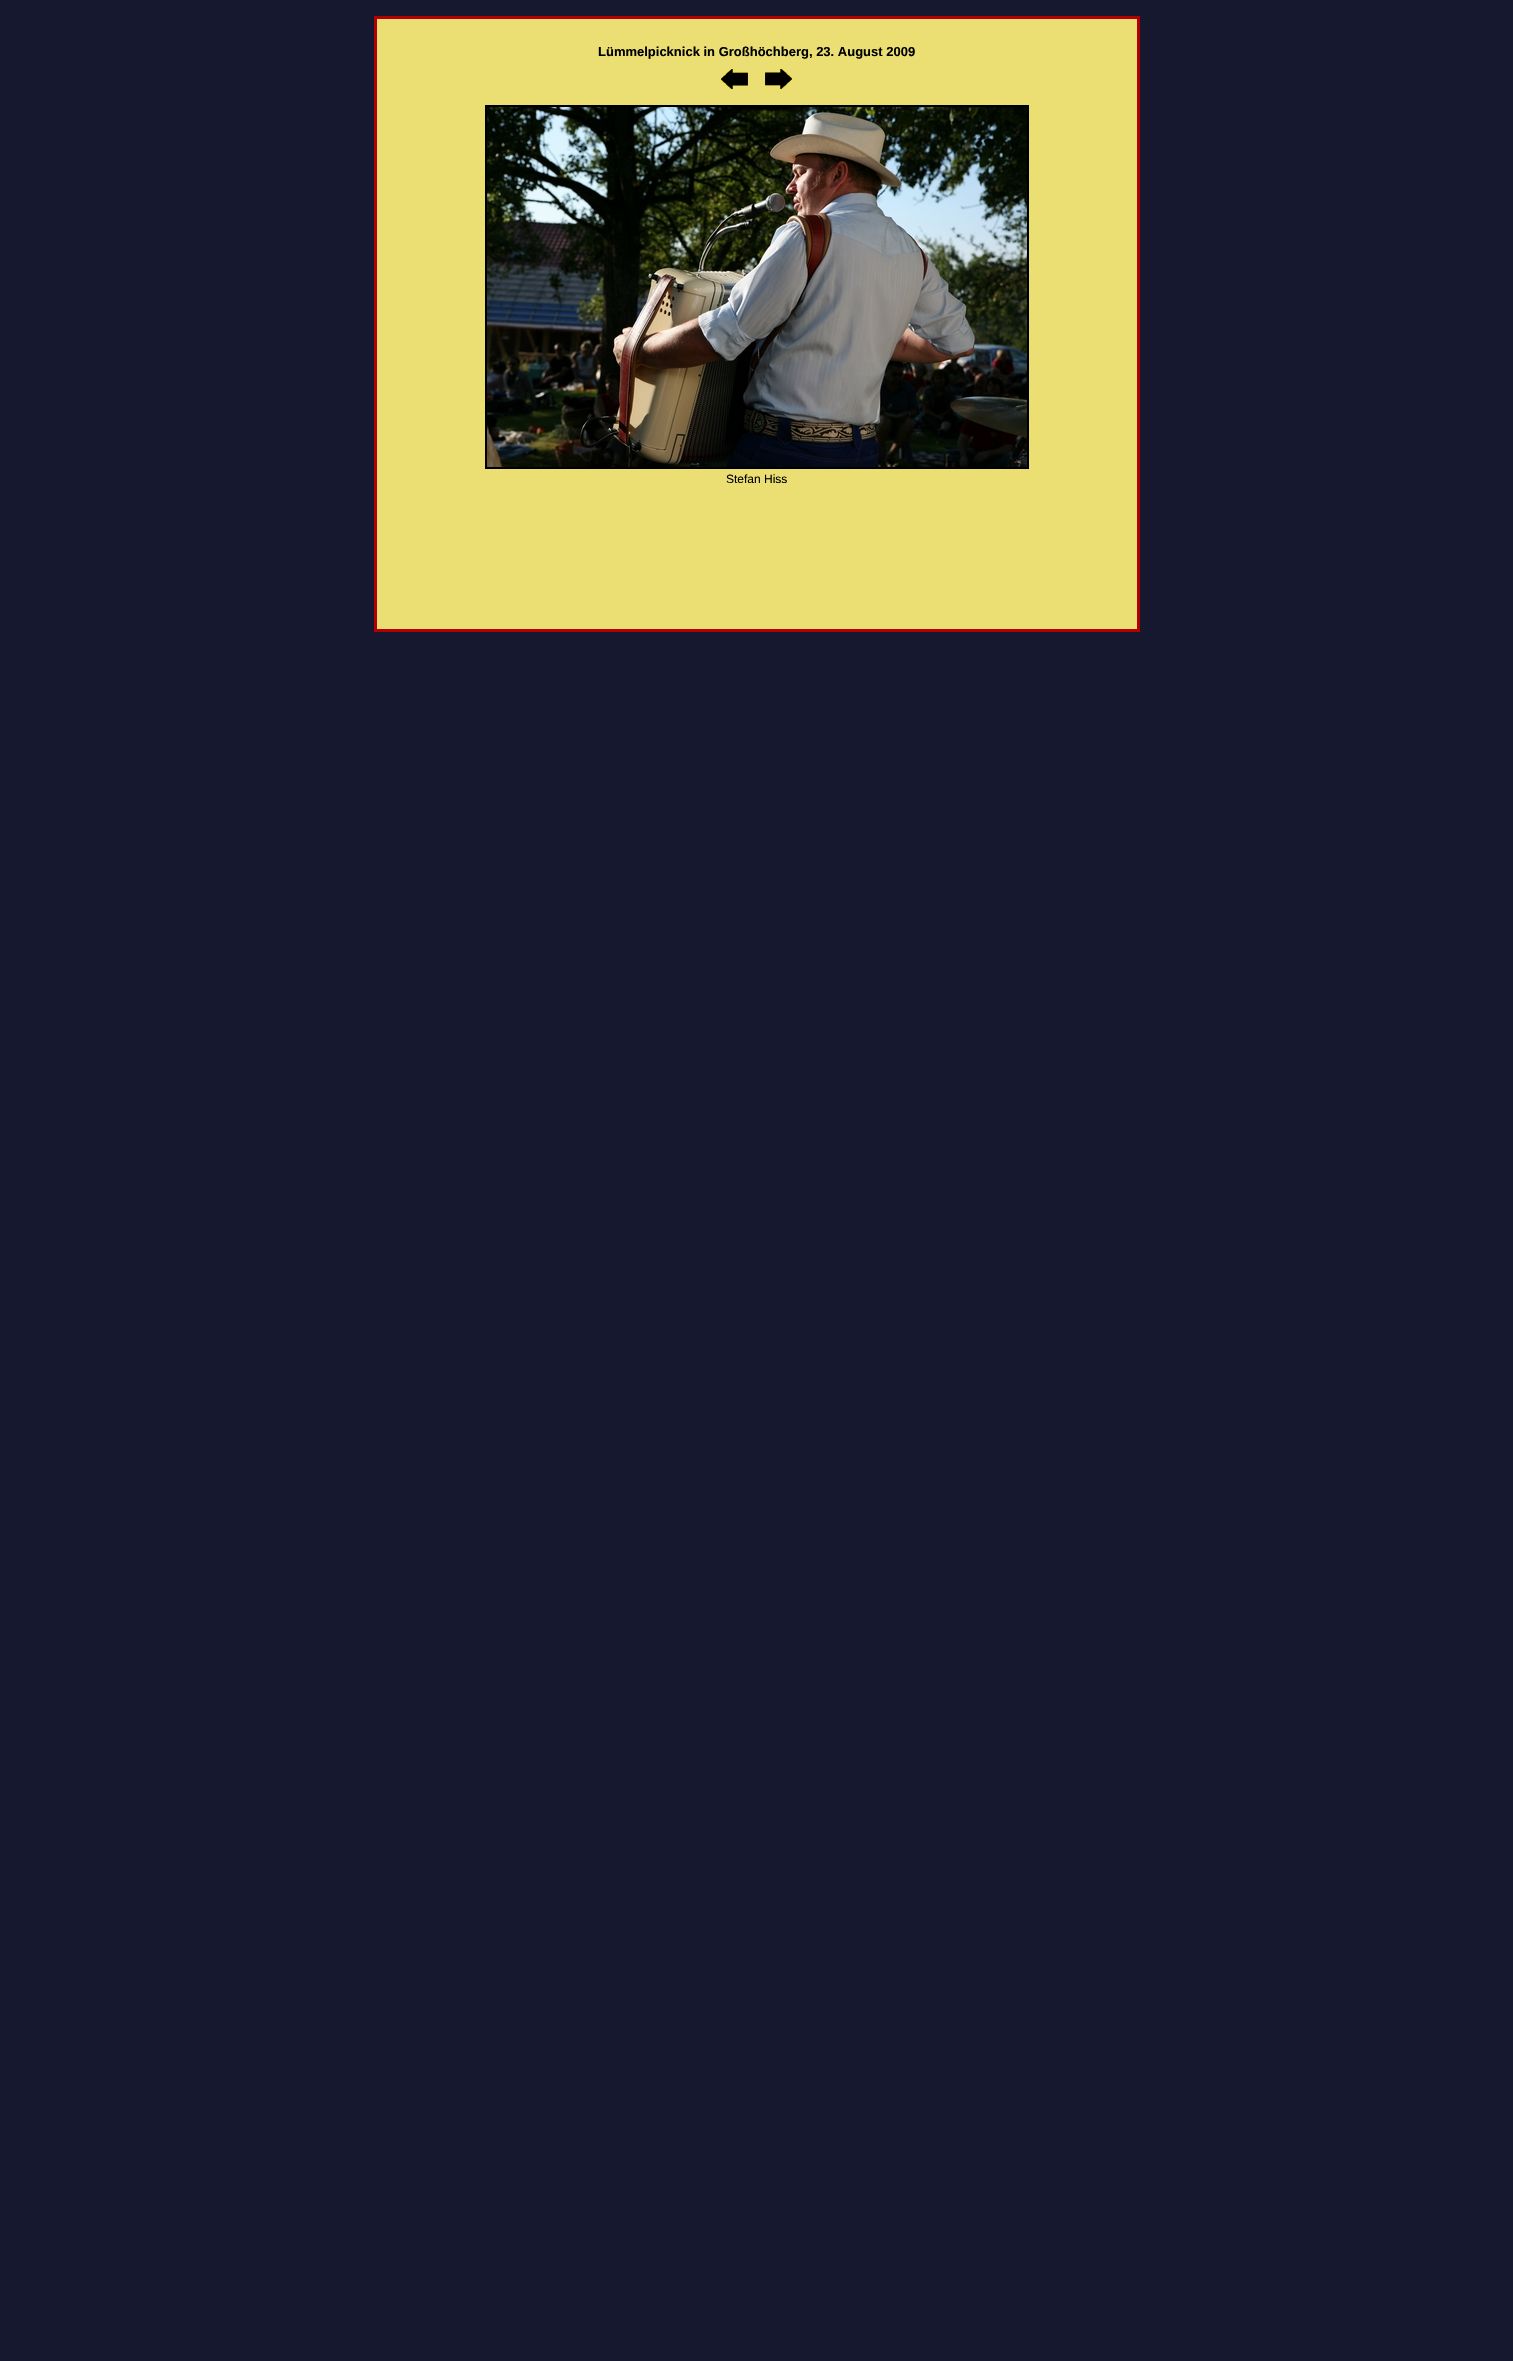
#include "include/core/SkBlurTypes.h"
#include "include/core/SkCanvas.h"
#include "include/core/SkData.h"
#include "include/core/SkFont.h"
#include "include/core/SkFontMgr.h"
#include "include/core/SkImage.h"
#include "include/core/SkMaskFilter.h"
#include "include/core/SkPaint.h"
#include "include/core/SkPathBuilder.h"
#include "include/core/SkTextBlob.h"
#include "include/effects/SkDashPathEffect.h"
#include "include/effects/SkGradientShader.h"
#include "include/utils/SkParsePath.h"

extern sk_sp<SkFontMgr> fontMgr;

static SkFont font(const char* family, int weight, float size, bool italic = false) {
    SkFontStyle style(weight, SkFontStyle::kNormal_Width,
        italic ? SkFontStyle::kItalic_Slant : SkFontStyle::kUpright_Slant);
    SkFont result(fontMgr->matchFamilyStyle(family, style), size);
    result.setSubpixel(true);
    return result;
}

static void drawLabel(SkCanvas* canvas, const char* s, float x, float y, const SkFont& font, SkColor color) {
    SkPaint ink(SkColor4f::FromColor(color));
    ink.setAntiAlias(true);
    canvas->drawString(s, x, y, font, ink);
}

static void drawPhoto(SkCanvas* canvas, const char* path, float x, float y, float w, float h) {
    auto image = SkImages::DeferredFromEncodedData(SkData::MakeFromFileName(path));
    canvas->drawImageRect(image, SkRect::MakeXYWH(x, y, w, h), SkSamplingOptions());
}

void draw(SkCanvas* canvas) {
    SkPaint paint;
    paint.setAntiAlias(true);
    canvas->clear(0xFF16182F);
    paint.setColor(0xFFEBDF73);
    canvas->drawRect(SkRect::MakeXYWH(375.5f, 17.5f, 763, 613), paint);
    paint.setStroke(true);
    paint.setStrokeWidth(3);
    paint.setColor(0xFFB20000);
    canvas->drawRect(SkRect::MakeXYWH(375.5f, 17.5f, 763, 613), paint);
    SkFont font1 = font("Liberation Sans", 700, 13);
    drawLabel(canvas, "Lümmelpicknick in Großhöchberg, 23. August 2009", 598, 56, font1, 0xFF000000);
    drawPhoto(canvas, "assets/img1.png", 721, 69, 27, 20);
    drawPhoto(canvas, "assets/img2.png", 765, 69, 27, 20);
    paint.setStrokeWidth(2);
    paint.setColor(0xFF000000);
    canvas->drawRect(SkRect::MakeXYWH(486, 106, 542, 362), paint);
    drawPhoto(canvas, "assets/img3.png", 487, 107, 540, 360);
    SkFont font2 = font("Liberation Sans", 400, 12);
    drawLabel(canvas, "Stefan Hiss", 726, 483, font2, 0xFF000000);
}
